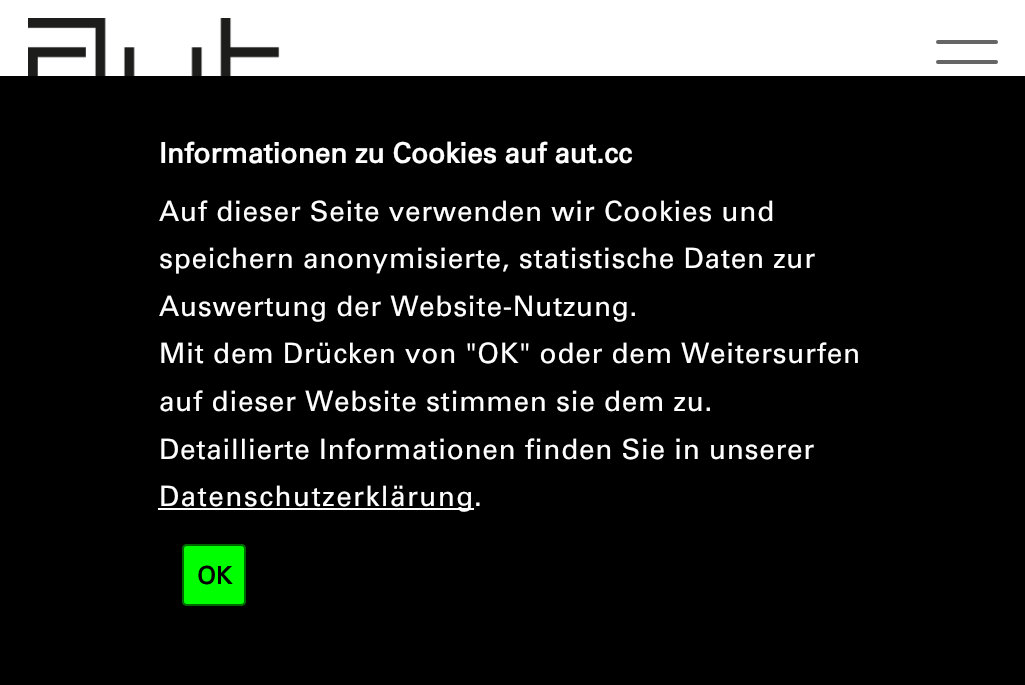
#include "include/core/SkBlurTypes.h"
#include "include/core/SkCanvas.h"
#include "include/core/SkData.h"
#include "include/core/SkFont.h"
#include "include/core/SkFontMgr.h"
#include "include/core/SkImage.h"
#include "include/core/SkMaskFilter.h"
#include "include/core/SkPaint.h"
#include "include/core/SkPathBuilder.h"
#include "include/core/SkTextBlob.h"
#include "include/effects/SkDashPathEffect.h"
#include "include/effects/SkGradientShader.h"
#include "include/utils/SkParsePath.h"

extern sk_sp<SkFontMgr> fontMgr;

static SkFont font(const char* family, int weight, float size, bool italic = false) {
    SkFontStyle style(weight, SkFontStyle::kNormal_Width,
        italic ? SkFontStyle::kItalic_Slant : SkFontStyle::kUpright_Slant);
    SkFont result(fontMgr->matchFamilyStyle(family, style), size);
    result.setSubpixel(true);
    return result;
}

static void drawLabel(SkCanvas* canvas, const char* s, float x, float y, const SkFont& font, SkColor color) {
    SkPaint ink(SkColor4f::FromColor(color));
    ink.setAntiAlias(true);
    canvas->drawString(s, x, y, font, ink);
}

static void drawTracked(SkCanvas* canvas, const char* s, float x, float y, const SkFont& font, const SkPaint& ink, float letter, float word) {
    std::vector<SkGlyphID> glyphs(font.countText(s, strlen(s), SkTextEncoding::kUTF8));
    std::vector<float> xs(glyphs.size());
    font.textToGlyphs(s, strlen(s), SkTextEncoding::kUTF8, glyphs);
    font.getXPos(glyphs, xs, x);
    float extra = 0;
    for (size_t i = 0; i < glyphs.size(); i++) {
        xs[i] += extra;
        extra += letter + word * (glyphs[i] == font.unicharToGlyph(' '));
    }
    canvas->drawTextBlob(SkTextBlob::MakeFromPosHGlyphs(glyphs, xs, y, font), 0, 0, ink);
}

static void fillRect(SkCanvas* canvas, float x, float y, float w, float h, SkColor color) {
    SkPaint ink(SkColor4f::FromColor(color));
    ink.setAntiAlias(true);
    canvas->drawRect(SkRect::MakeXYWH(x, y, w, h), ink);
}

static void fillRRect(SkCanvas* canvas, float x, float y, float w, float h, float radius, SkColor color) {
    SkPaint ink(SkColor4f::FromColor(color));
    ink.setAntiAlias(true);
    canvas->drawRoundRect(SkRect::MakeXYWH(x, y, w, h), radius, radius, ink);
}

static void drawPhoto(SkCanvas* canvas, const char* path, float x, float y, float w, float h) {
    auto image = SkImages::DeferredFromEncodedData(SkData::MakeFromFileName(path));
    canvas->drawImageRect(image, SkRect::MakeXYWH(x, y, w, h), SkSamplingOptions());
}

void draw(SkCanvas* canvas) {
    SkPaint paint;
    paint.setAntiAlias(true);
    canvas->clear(0xFFFFFFFF);
    drawPhoto(canvas, "assets/img1.png", 28, 18, 252, 58);
    fillRRect(canvas, 936, 60, 62, 4, 2, 0xFF666666);
    fillRRect(canvas, 936, 40, 62, 4, 2, 0xFF666666);
    fillRect(canvas, 0, 76, 1025, 609, 0xFF000000);
    SkFont font1 = font("Univers", 700, 28);
    drawLabel(canvas, "Informationen zu Cookies auf aut.cc", 159, 163, font1, 0xFFFFFFFF);
    SkFont font2 = font("Univers", 400, 28);
    paint.setColor(0xFFFFFFFF);
    drawTracked(canvas, "Auf dieser Seite verwenden wir Cookies und", 159, 221, font2, paint, 0.7f, 0);
    drawTracked(canvas, "speichern anonymisierte, statistische Daten zur", 159, 268, font2, paint, 0.7f, 0);
    drawTracked(canvas, "Auswertung der Website-Nutzung.", 159, 316, font2, paint, 0.7f, 0);
    drawTracked(canvas, "Mit dem Drücken von \"OK\" oder dem Weitersurfen", 159, 363, font2, paint, 0.7f, 0);
    drawTracked(canvas, "auf dieser Website stimmen sie dem zu.", 159, 411, font2, paint, 0.7f, 0);
    drawTracked(canvas, "Detaillierte Informationen finden Sie in unserer", 159, 459, font2, paint, 0.7f, 0);
    fillRect(canvas, 158, 508, 316, 2, 0xFFFFFFFF);
    drawTracked(canvas, "Datenschutzerklärung", 159, 506, font2, paint, 1.4f, 0);
    drawTracked(canvas, ".", 474, 506, font2, paint, 0.7f, 0);
    fillRRect(canvas, 182, 544, 64, 62, 5, 0xFF00FF00);
    paint.setStroke(true);
    paint.setStrokeWidth(2);
    paint.setColor(0x99000000);
    canvas->drawRoundRect(SkRect::MakeXYWH(183, 545, 62, 60), 4, 4, paint);
    SkFont font3 = font("Univers", 700, 24);
    drawLabel(canvas, "OK", 197, 584, font3, 0xFF000000);
}
